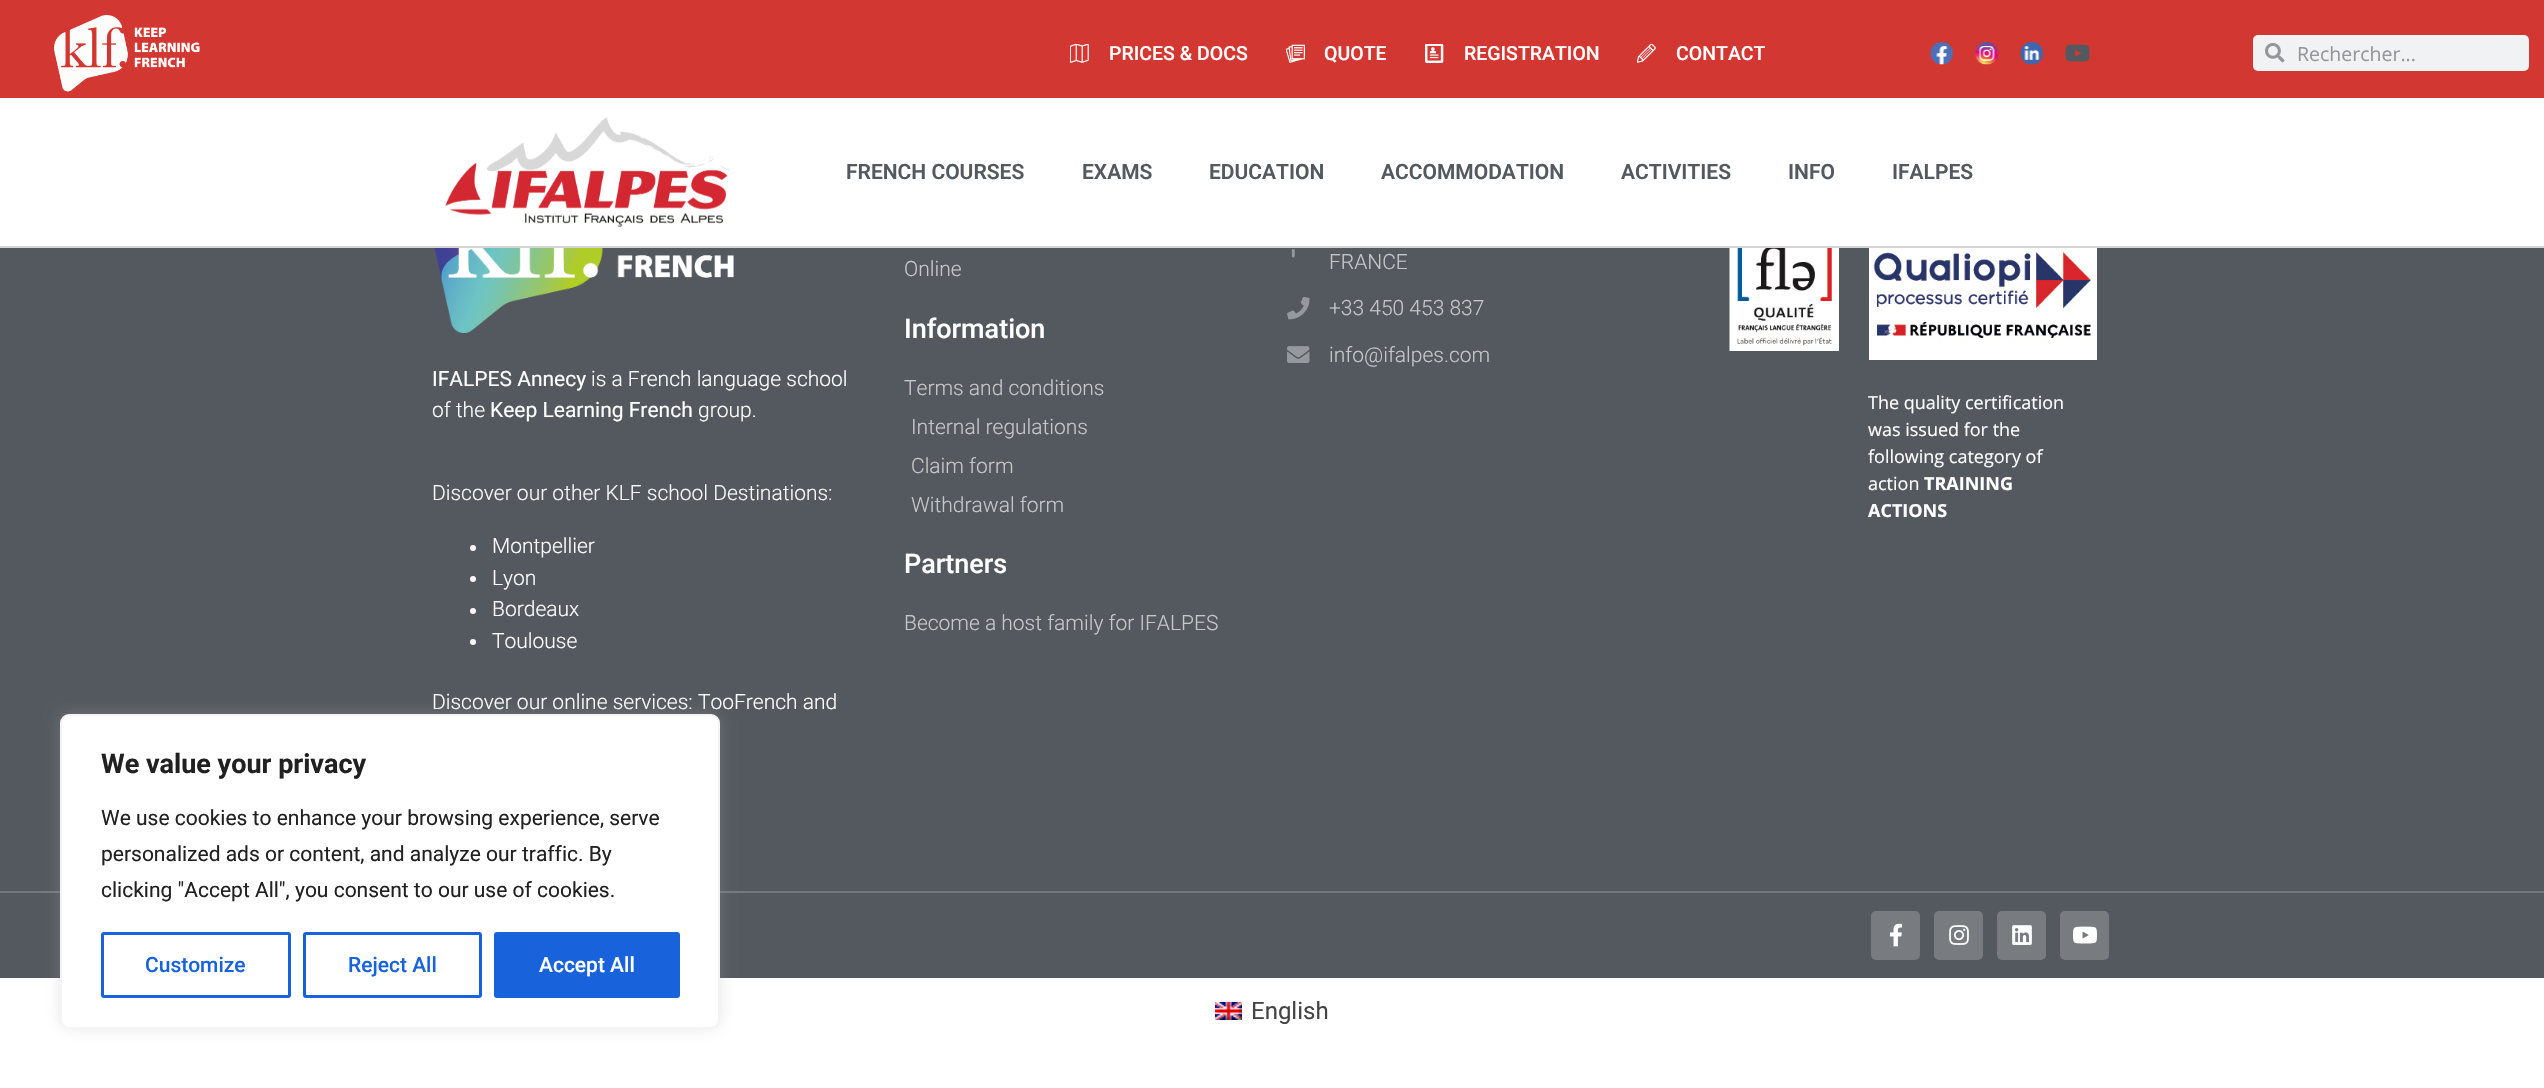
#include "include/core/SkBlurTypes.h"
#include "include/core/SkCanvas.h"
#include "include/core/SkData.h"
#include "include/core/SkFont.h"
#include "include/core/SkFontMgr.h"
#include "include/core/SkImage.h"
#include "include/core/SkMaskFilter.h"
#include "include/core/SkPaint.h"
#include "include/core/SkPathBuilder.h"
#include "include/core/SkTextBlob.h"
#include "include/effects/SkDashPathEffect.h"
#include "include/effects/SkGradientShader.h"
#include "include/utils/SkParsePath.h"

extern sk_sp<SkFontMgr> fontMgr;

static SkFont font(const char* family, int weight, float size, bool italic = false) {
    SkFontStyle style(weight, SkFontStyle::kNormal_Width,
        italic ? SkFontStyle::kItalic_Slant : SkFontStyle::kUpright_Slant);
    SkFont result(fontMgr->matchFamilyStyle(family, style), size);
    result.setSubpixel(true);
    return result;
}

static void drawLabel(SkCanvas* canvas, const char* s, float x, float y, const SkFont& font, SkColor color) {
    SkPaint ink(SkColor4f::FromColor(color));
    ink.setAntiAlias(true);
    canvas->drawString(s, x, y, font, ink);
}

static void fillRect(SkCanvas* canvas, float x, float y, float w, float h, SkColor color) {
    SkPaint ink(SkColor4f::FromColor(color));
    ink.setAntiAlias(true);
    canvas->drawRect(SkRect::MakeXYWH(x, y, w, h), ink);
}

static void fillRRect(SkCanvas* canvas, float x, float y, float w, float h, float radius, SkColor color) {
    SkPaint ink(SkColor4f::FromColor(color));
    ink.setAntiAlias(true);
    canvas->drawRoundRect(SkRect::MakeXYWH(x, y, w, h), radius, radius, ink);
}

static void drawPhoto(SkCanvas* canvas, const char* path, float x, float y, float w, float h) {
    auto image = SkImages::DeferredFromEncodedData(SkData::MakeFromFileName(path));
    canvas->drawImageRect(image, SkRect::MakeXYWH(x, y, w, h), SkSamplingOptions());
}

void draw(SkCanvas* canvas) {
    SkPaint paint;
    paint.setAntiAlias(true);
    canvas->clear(0xFFFFFFFF);
    fillRect(canvas, 0, 0, 2544, 98, 0xFFD23732);
    drawPhoto(canvas, "assets/img1.png", 54, 15, 146, 77);
    drawPhoto(canvas, "assets/img2.png", 1070, 44, 19, 19);
    SkFont font1 = font("Roboto", 500, 19.5f);
    drawLabel(canvas, "PRICES & DOCS", 1109, 60, font1, 0xFFFFFFFF);
    drawPhoto(canvas, "assets/img3.png", 1286, 44, 19, 19);
    drawLabel(canvas, "QUOTE", 1324, 60, font1, 0xFFFFFFFF);
    drawPhoto(canvas, "assets/img4.png", 1425, 44, 19, 19);
    drawLabel(canvas, "REGISTRATION", 1464, 60, font1, 0xFFFFFFFF);
    drawPhoto(canvas, "assets/img5.png", 1637, 44, 19, 19);
    drawLabel(canvas, "CONTACT", 1676, 60, font1, 0xFFFFFFFF);
    drawPhoto(canvas, "assets/img6.png", 1930, 42, 24, 23);
    drawPhoto(canvas, "assets/img7.png", 1975, 42, 24, 23);
    drawPhoto(canvas, "assets/img8.png", 2020, 42, 24, 23);
    drawPhoto(canvas, "assets/img9.png", 2065, 44, 25, 18);
    fillRRect(canvas, 2253, 35, 276, 36, 5, 0xFFF1F2F3);
    drawPhoto(canvas, "assets/img10.png", 2265, 43, 20, 20);
    SkFont font2 = font("Open Sans", 400, 19.5f);
    drawLabel(canvas, "Rechercher...", 2297, 61, font2, 0xFF93969A);
    fillRect(canvas, 0, 246, 2544, 2, 0xFFD3D3D3);
    drawPhoto(canvas, "assets/img11.png", 445, 117, 284, 110);
    SkFont font3 = font("Roboto", 600, 21);
    drawLabel(canvas, "FRENCH COURSES", 846, 179, font3, 0xFF54595F);
    drawLabel(canvas, "EXAMS", 1082, 179, font3, 0xFF54595F);
    drawLabel(canvas, "EDUCATION", 1209, 179, font3, 0xFF54595F);
    drawLabel(canvas, "ACCOMMODATION", 1381, 179, font3, 0xFF54595F);
    drawLabel(canvas, "ACTIVITIES", 1621, 179, font3, 0xFF54595F);
    drawLabel(canvas, "INFO", 1788, 179, font3, 0xFF54595F);
    drawLabel(canvas, "IFALPES", 1892, 179, font3, 0xFF54595F);
    fillRect(canvas, 0, 248, 2544, 643, 0xFF54595F);
    drawPhoto(canvas, "assets/img12.png", 434, 248, 300, 85);
    SkFont font4 = font("Roboto", 400, 21);
    drawLabel(canvas, "IFALPES Annecy", 432, 386, font4, 0xFFFFFFFF);
    SkFont font5 = font("Roboto", 300, 21);
    drawLabel(canvas, "is a French language school", 591, 386, font5, 0xFFFFFFFF);
    drawLabel(canvas, "of the", 432, 417, font5, 0xFFFFFFFF);
    drawLabel(canvas, "Keep Learning French", 490, 417, font4, 0xFFFFFFFF);
    drawLabel(canvas, "group.", 698, 417, font5, 0xFFFFFFFF);
    drawLabel(canvas, "Discover our other KLF school Destinations:", 432, 500, font5, 0xFFF8F8F9);
    paint.setColor(0xFFF8F8F9);
    canvas->drawCircle(473, 548, 3, paint);
    drawLabel(canvas, "Montpellier", 492, 553, font5, 0xFFFFFFFF);
    canvas->drawCircle(473, 579, 3, paint);
    drawLabel(canvas, "Lyon", 492, 585, font5, 0xFFFFFFFF);
    canvas->drawCircle(473, 611, 3, paint);
    drawLabel(canvas, "Bordeaux", 492, 616, font5, 0xFFFFFFFF);
    canvas->drawCircle(473, 642, 3, paint);
    drawLabel(canvas, "Toulouse", 492, 648, font5, 0xFFFFFFFF);
    drawLabel(canvas, "Discover our online services: TooFrench and", 432, 709, font5, 0xFFFFFFFF);
    drawLabel(canvas, "Online", 904, 276, font5, 0xFFC5C7C9);
    SkFont font6 = font("Roboto", 500, 27);
    drawLabel(canvas, "Information", 904, 338, font6, 0xFFFFFFFF);
    drawLabel(canvas, "Terms and conditions", 904, 395, font5, 0xFFC5C7C9);
    drawLabel(canvas, "Internal regulations", 911, 434, font5, 0xFFC5C7C9);
    drawLabel(canvas, "Claim form", 911, 473, font5, 0xFFC5C7C9);
    drawLabel(canvas, "Withdrawal form", 911, 512, font5, 0xFFC5C7C9);
    drawLabel(canvas, "Partners", 904, 573, font6, 0xFFFFFFFF);
    drawLabel(canvas, "Become a host family for IFALPES", 904, 630, font5, 0xFFC5C7C9);
    drawPhoto(canvas, "assets/img13.png", 1291, 249, 4, 9);
    drawLabel(canvas, "FRANCE", 1329, 269, font5, 0xFFC5C7C9);
    drawPhoto(canvas, "assets/img14.png", 1287, 296, 23, 24);
    drawLabel(canvas, "+33 450 453 837", 1329, 315, font5, 0xFFC5C7C9);
    drawPhoto(canvas, "assets/img15.png", 1287, 346, 23, 17);
    drawLabel(canvas, "info@ifalpes.com", 1329, 362, font5, 0xFFC5C7C9);
    drawPhoto(canvas, "assets/img16.png", 1729, 248, 110, 103);
    drawPhoto(canvas, "assets/img17.png", 1869, 248, 228, 112);
    SkFont font7 = font("Open Sans", 400, 18);
    drawLabel(canvas, "The quality certification", 1868, 409, font7, 0xFFFFFFFF);
    drawLabel(canvas, "was issued for the", 1868, 436, font7, 0xFFFFFFFF);
    drawLabel(canvas, "following category of", 1868, 463, font7, 0xFFFFFFFF);
    drawLabel(canvas, "action", 1868, 490, font7, 0xFFFFFFFF);
    SkFont font8 = font("Open Sans", 700, 18);
    drawLabel(canvas, "TRAINING", 1924, 490, font8, 0xFFFFFFFF);
    drawLabel(canvas, "ACTIONS", 1868, 517, font8, 0xFFFFFFFF);
    fillRect(canvas, 0, 893, 2544, 85, 0xFF54595F);
    fillRect(canvas, 0, 891, 2544, 2, 0xFF74797D);
    fillRRect(canvas, 1871, 911, 49, 49, 5, 0xFF787C81);
    drawPhoto(canvas, "assets/img18.png", 1890, 923, 12, 24);
    fillRRect(canvas, 1934, 911, 49, 49, 5, 0xFF787C81);
    drawPhoto(canvas, "assets/img19.png", 1949, 925, 20, 20);
    fillRRect(canvas, 1997, 911, 49, 49, 5, 0xFF787C81);
    drawPhoto(canvas, "assets/img20.png", 2012, 925, 20, 20);
    fillRRect(canvas, 2060, 911, 49, 49, 5, 0xFF787C81);
    drawPhoto(canvas, "assets/img21.png", 2073, 926, 24, 18);
    paint.setColor(0x4DACABAB);
    paint.setMaskFilter(SkMaskFilter::MakeBlur(kNormal_SkBlurStyle, 7.5f));
    canvas->drawRoundRect(SkRect::MakeXYWH(60, 713, 660, 315), 9, 9, paint);
    paint.setMaskFilter(nullptr);
    paint.setColor(0xFFFFFFFF);
    canvas->drawRoundRect(SkRect::MakeXYWH(61, 715, 658, 313), 8, 8, paint);
    paint.setStroke(true);
    paint.setStrokeWidth(2);
    paint.setColor(0xFFF4F4F4);
    canvas->drawRoundRect(SkRect::MakeXYWH(61, 715, 658, 313), 8, 8, paint);
    SkFont font9 = font("Roboto", 700, 27);
    drawLabel(canvas, "We value your privacy", 101, 773, font9, 0xFF212121);
    drawLabel(canvas, "We use cookies to enhance your browsing experience, serve", 101, 825, font4, 0xFF212121);
    drawLabel(canvas, "personalized ads or content, and analyze our traffic. By", 101, 861, font4, 0xFF212121);
    drawLabel(canvas, "clicking \"Accept All\", you consent to our use of cookies.", 101, 897, font4, 0xFF212121);
    paint.setStrokeWidth(3);
    paint.setColor(0xFF1863DC);
    canvas->drawRoundRect(SkRect::MakeXYWH(102.5f, 933.5f, 187, 63), 1.5f, 1.5f, paint);
    SkFont font10 = font("Roboto", 500, 21);
    drawLabel(canvas, "Customize", 145, 972, font10, 0xFF1863DC);
    canvas->drawRoundRect(SkRect::MakeXYWH(304.5f, 933.5f, 176, 63), 1.5f, 1.5f, paint);
    drawLabel(canvas, "Reject All", 348, 972, font10, 0xFF1863DC);
    paint.setStroke(false);
    canvas->drawRoundRect(SkRect::MakeXYWH(495.5f, 933.5f, 183, 63), 1.5f, 1.5f, paint);
    paint.setStroke(true);
    canvas->drawRoundRect(SkRect::MakeXYWH(495.5f, 933.5f, 183, 63), 1.5f, 1.5f, paint);
    drawLabel(canvas, "Accept All", 539, 972, font10, 0xFFFFFFFF);
    drawPhoto(canvas, "assets/img22.png", 1215, 1002, 27, 18);
    SkFont font11 = font("Roboto", 400, 24);
    drawLabel(canvas, "English", 1251, 1019, font11, 0xFF444444);
}
